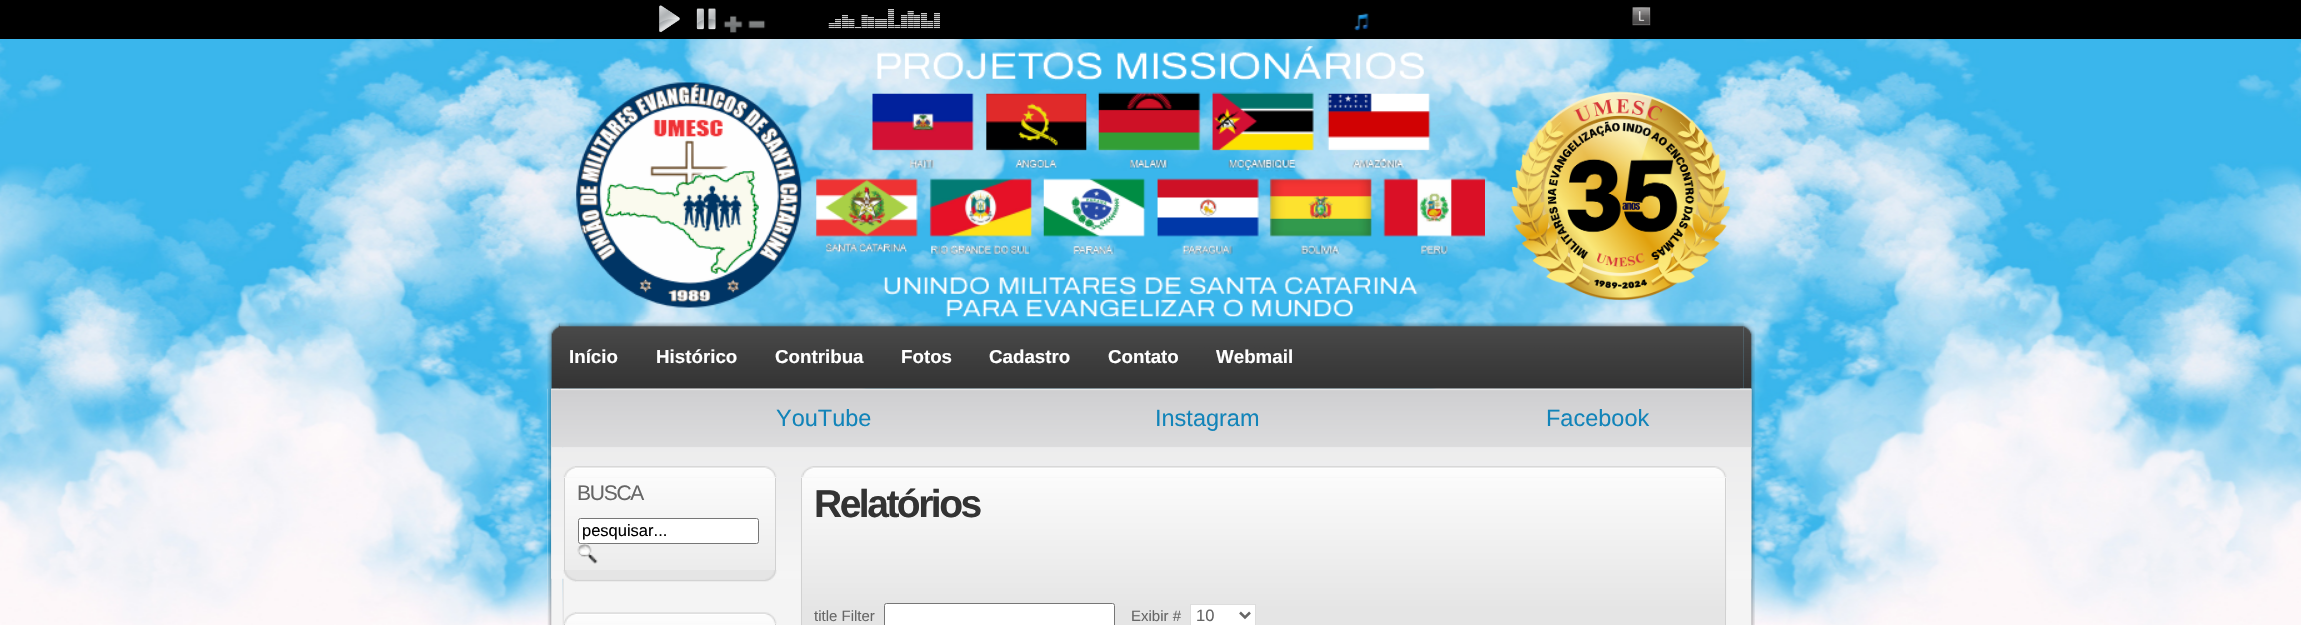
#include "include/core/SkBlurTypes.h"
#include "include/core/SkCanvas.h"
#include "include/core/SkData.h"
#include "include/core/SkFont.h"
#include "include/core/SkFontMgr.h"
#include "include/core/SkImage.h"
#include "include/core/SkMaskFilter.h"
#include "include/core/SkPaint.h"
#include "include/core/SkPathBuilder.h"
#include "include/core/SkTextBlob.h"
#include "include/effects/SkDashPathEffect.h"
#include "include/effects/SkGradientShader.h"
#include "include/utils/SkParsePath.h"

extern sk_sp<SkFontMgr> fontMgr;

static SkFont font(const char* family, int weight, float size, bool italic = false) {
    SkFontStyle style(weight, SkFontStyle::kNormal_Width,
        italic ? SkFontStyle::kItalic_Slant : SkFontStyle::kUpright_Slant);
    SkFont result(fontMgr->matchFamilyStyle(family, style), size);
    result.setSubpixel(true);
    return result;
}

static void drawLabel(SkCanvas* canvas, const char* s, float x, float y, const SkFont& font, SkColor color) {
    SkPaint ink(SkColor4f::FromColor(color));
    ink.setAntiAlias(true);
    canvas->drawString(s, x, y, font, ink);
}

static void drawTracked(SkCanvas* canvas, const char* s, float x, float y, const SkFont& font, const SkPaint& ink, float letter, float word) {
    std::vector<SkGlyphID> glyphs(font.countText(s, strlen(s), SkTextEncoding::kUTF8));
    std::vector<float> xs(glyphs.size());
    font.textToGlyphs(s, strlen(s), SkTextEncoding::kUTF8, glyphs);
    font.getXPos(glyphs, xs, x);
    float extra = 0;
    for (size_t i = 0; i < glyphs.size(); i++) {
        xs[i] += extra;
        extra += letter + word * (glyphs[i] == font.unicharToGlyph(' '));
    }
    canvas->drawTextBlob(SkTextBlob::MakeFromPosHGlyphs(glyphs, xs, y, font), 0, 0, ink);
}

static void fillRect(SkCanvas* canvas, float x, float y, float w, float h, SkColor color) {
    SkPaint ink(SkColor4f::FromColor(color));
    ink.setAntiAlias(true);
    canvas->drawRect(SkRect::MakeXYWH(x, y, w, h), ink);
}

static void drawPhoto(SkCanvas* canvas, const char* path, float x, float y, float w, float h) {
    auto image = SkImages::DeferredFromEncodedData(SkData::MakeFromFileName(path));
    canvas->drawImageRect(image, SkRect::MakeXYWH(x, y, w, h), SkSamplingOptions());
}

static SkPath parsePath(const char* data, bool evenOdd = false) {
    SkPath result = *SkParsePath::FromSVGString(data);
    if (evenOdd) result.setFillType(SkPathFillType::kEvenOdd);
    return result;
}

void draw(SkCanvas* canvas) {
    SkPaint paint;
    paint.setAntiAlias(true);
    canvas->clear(0xFFFFFFFF);
    drawPhoto(canvas, "assets/img1.png", 0, 0, 2301, 39);
    drawPhoto(canvas, "assets/img2.png", 0, 39, 2301, 586);
    drawPhoto(canvas, "assets/img3.png", 816, 46, 669, 271);
    drawPhoto(canvas, "assets/img4.png", 576, 82, 226, 226);
    drawPhoto(canvas, "assets/img5.png", 1511, 91, 219, 209);
    fillRect(canvas, 563, 447, 1177, 178, 0xFFF4F4F4);
    drawPhoto(canvas, "assets/img9.png", 547, 388, 17, 237);
    drawPhoto(canvas, "assets/img6.png", 558, 322, 1186, 67);
    drawPhoto(canvas, "assets/img7.png", 547, 323, 13, 66);
    drawPhoto(canvas, "assets/img8.png", 1743, 323, 12, 66);
    SkFont font1 = font("Liberation Sans", 700, 18.75f);
    drawLabel(canvas, "Início", 569, 363, font1, 0xFFFFFFFF);
    drawLabel(canvas, "Histórico", 656, 363, font1, 0xFFFFFFFF);
    drawLabel(canvas, "Contribua", 775, 363, font1, 0xFFFFFFFF);
    drawLabel(canvas, "Fotos", 901, 363, font1, 0xFFFFFFFF);
    drawLabel(canvas, "Cadastro", 989, 363, font1, 0xFFFFFFFF);
    drawLabel(canvas, "Contato", 1108, 363, font1, 0xFFFFFFFF);
    drawLabel(canvas, "Webmail", 1216, 363, font1, 0xFFFFFFFF);
    drawPhoto(canvas, "assets/img10.png", 1740, 388, 15, 237);
    drawPhoto(canvas, "assets/img11.png", 551, 388, 1201, 60);
    drawPhoto(canvas, "assets/img12.png", 551, 388, 1201, 60);
    SkFont font2 = font("Liberation Sans", 400, 23.5f);
    drawLabel(canvas, "YouTube", 776, 426, font2, 0xFF1284B9);
    drawLabel(canvas, "Instagram", 1155, 426, font2, 0xFF1284B9);
    drawLabel(canvas, "Facebook", 1546, 426, font2, 0xFF1284B9);
    drawPhoto(canvas, "assets/img13.png", 551, 447, 1201, 132);
    drawPhoto(canvas, "assets/img14.png", 575, 466, 190, 12);
    drawPhoto(canvas, "assets/img15.png", 563, 466, 12, 12);
    drawPhoto(canvas, "assets/img16.png", 765, 466, 12, 12);
    drawPhoto(canvas, "assets/img17.png", 564, 477, 212, 93);
    fillRect(canvas, 775, 478, 1, 92, 0xFFD1D1D1);
    fillRect(canvas, 564, 478, 1, 92, 0xFFD1D1D1);
    SkFont font3 = font("Liberation Sans", 400, 21);
    paint.setColor(0xFF666666);
    drawTracked(canvas, "BUSCA", 577, 500, font3, paint, -1.25f, 0);
    paint.setColor(0xFFFFFFFF);
    canvas->drawRoundRect(SkRect::MakeXYWH(578.5f, 518.5f, 180, 25), 2, 2, paint);
    paint.setStroke(true);
    paint.setStrokeWidth(1);
    paint.setColor(0xFF767676);
    canvas->drawRoundRect(SkRect::MakeXYWH(578.5f, 518.5f, 180, 25), 2, 2, paint);
    SkFont font4 = font("Liberation Sans", 400, 16.5f);
    drawLabel(canvas, "pesquisar...", 582, 536, font4, 0xFF000000);
    drawPhoto(canvas, "assets/img18.png", 577, 543, 21, 21);
    drawPhoto(canvas, "assets/img19.png", 575, 570, 190, 12);
    drawPhoto(canvas, "assets/img20.png", 563, 570, 13, 12);
    drawPhoto(canvas, "assets/img21.png", 765, 570, 12, 12);
    drawPhoto(canvas, "assets/img22.png", 575, 612, 190, 12);
    drawPhoto(canvas, "assets/img23.png", 564, 612, 12, 12);
    drawPhoto(canvas, "assets/img24.png", 765, 612, 12, 12);
    drawPhoto(canvas, "assets/img25.png", 563, 623, 213, 2);
    fillRect(canvas, 775, 624, 1, 1, 0xFFD1D1D1);
    fillRect(canvas, 564, 624, 1, 1, 0xFFD1D1D1);
    drawPhoto(canvas, "assets/img26.png", 812, 466, 903, 12);
    drawPhoto(canvas, "assets/img27.png", 801, 466, 12, 12);
    drawPhoto(canvas, "assets/img16.png", 1715, 466, 12, 12);
    fillRect(canvas, 802, 610, 923, 15, 0xFFE5E5E5);
    drawPhoto(canvas, "assets/img28.png", 801, 477, 926, 133);
    fillRect(canvas, 1725, 478, 1, 147, 0xFFD1D1D1);
    fillRect(canvas, 801, 478, 1, 147, 0xFFD1D1D1);
    SkFont font5 = font("Liberation Sans", 700, 39);
    paint.setStroke(false);
    paint.setColor(0xFF333333);
    drawTracked(canvas, "Relatórios", 814, 517, font5, paint, -2.5f, 0);
    SkFont font6 = font("Liberation Sans", 400, 15);
    drawLabel(canvas, "title Filter", 814, 621, font6, 0xFF666666);
    paint.setColor(0xFFFFFFFF);
    canvas->drawRoundRect(SkRect::MakeXYWH(884.5f, 603.5f, 230, 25), 2, 2, paint);
    paint.setStroke(true);
    paint.setColor(0xFF767676);
    canvas->drawRoundRect(SkRect::MakeXYWH(884.5f, 603.5f, 230, 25), 2, 2, paint);
    drawLabel(canvas, "Exibir #", 1131, 621, font6, 0xFF666666);
    paint.setStroke(false);
    paint.setColor(0xFFFFFFFF);
    canvas->drawRect(SkRect::MakeXYWH(1190.5f, 604.5f, 65, 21), paint);
    paint.setStroke(true);
    paint.setColor(0xFFDDDDDD);
    canvas->drawRect(SkRect::MakeXYWH(1190.5f, 604.5f, 65, 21), paint);
    paint.setStrokeWidth(2.5f);
    paint.setColor(0xFF666666);
    canvas->drawPath(parsePath("M1240 612.5L1245 617.5L1250 612.5"), paint);
    drawLabel(canvas, "10", 1196, 621, font4, 0xFF666666);
}
